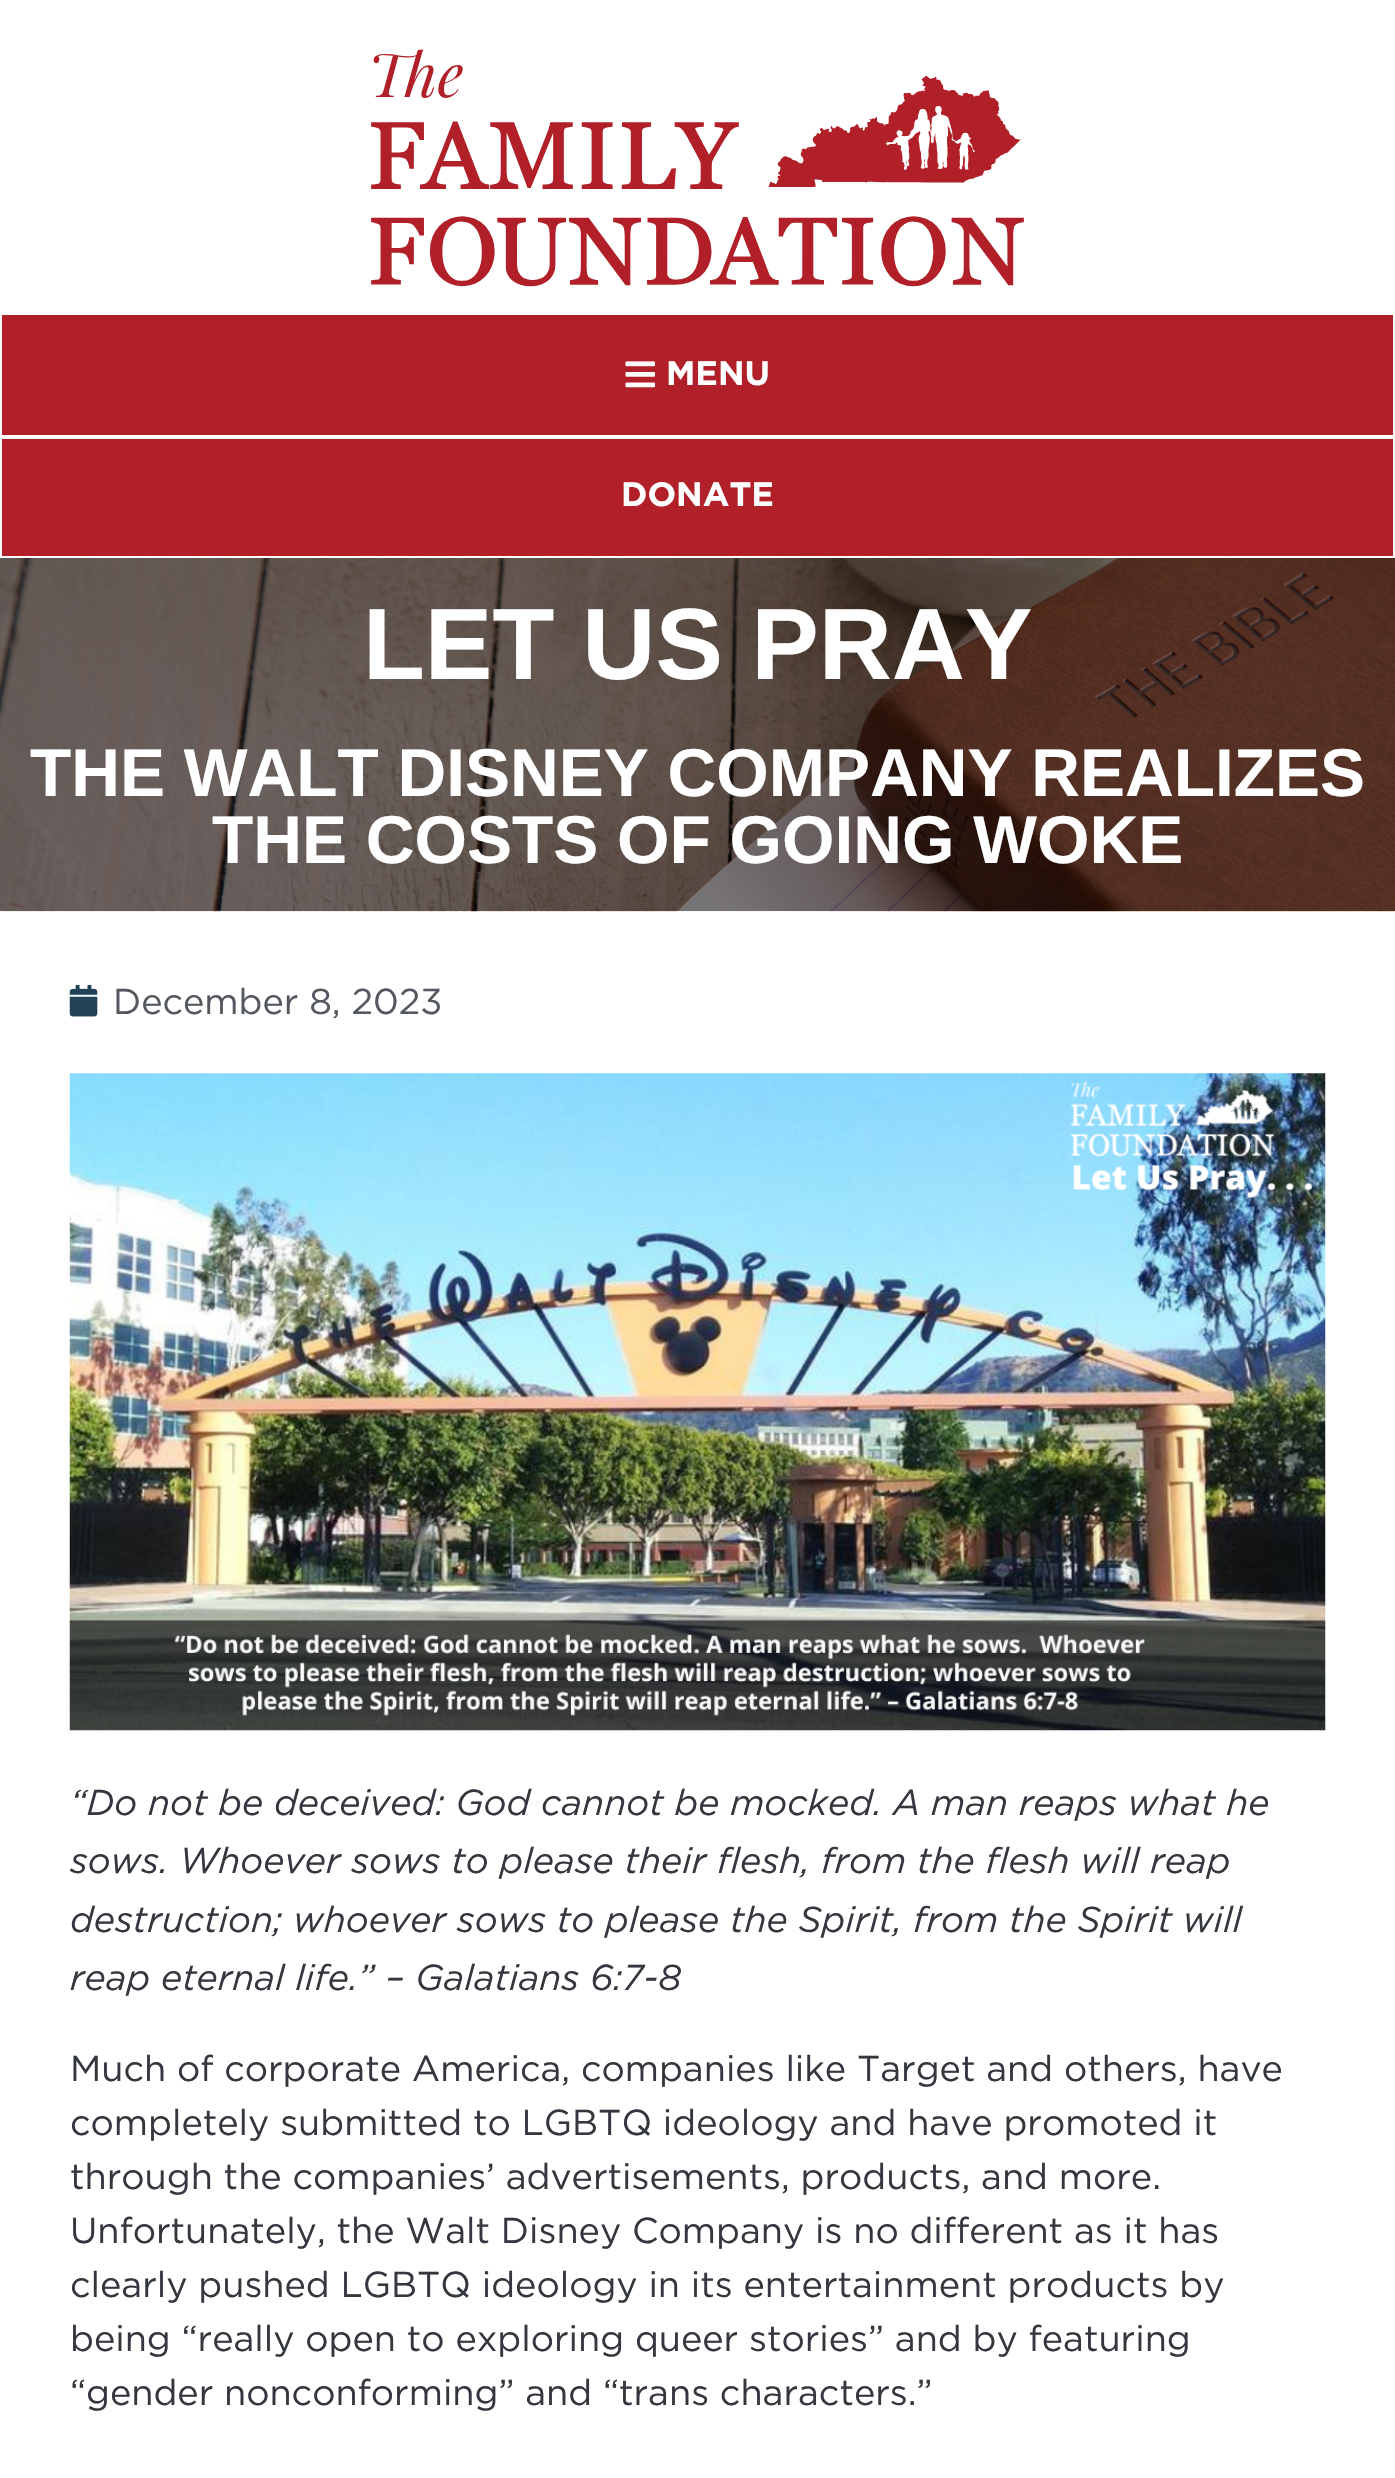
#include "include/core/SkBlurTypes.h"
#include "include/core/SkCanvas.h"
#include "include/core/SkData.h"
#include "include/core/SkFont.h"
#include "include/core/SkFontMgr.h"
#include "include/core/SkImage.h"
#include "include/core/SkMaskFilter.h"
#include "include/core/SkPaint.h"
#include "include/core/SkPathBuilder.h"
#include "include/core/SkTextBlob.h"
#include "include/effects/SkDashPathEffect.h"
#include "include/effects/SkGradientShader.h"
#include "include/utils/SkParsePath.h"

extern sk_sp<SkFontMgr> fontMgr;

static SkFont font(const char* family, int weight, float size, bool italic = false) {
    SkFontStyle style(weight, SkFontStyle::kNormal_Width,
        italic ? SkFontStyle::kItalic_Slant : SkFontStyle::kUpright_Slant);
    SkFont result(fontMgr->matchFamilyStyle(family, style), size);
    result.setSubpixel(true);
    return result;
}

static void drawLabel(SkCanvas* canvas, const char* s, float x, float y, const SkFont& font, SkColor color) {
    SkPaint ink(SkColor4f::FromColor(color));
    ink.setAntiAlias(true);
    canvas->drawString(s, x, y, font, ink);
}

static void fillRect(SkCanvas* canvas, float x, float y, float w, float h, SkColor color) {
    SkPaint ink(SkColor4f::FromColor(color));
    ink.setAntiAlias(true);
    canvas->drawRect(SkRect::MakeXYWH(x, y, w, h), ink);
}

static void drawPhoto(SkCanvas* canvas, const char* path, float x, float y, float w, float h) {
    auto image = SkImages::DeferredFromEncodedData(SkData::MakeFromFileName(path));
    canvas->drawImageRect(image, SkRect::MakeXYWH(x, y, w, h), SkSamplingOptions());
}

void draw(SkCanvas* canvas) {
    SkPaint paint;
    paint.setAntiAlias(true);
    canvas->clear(0xFFFFFFFF);
    drawPhoto(canvas, "assets/img1.png", 371, 49, 653, 238);
    fillRect(canvas, 2, 315, 1391, 120, 0xFFB12028);
    drawPhoto(canvas, "assets/img2.png", 625, 361, 31, 27);
    SkFont font1 = font("Gotham", 700, 33.75f);
    drawLabel(canvas, "MENU", 666, 385, font1, 0xFFFFFFFF);
    fillRect(canvas, 2, 439, 1391, 117, 0xFFB12028);
    drawLabel(canvas, "DONATE", 621, 506, font1, 0xFFFFFFFF);
    drawPhoto(canvas, "assets/img3.png", 0, 558, 1395, 354);
    SkFont font2 = font("Liberation Sans", 700, 101.25f);
    drawLabel(canvas, "LET US PRAY", 363, 679, font2, 0xFFFFFFFF);
    SkFont font3 = font("Liberation Sans", 700, 67.5f);
    drawLabel(canvas, "THE WALT DISNEY COMPANY REALIZES", 30, 796, font3, 0xFFFFFFFF);
    drawLabel(canvas, "THE COSTS OF GOING WOKE", 212, 863, font3, 0xFFFFFFFF);
    drawPhoto(canvas, "assets/img4.png", 69, 984, 29, 33);
    SkFont font4 = font("Gotham", 400, 36);
    drawLabel(canvas, "December 8, 2023", 113, 1014, font4, 0xFF54595F);
    drawPhoto(canvas, "assets/img5.png", 69, 1073, 1257, 658);
    SkFont font5 = font("Gotham", 400, 36, true);
    drawLabel(canvas, "“Do not be deceived: God cannot be mocked. A man reaps what he", 70, 1815, font5, 0xFF34383E);
    drawLabel(canvas, "sows. Whoever sows to please their flesh, from the flesh will reap", 70, 1873, font5, 0xFF34383E);
    drawLabel(canvas, "destruction; whoever sows to please the Spirit, from the Spirit will", 70, 1932, font5, 0xFF34383E);
    drawLabel(canvas, "reap eternal life.” – Galatians 6:7-8", 70, 1990, font5, 0xFF34383E);
    drawLabel(canvas, "Much of corporate America, companies like Target and others, have", 70, 2081, font4, 0xFF34383E);
    drawLabel(canvas, "completely submitted to LGBTQ ideology and have promoted it", 70, 2135, font4, 0xFF34383E);
    drawLabel(canvas, "through the companies’ advertisements, products, and more.", 70, 2189, font4, 0xFF34383E);
    drawLabel(canvas, "Unfortunately, the Walt Disney Company is no different as it has", 70, 2243, font4, 0xFF34383E);
    drawLabel(canvas, "clearly pushed LGBTQ ideology in its entertainment products by", 70, 2297, font4, 0xFF34383E);
    drawLabel(canvas, "being “really open to exploring queer stories” and by featuring", 70, 2351, font4, 0xFF34383E);
    drawLabel(canvas, "“gender nonconforming” and “trans characters.”", 70, 2405, font4, 0xFF34383E);
}
